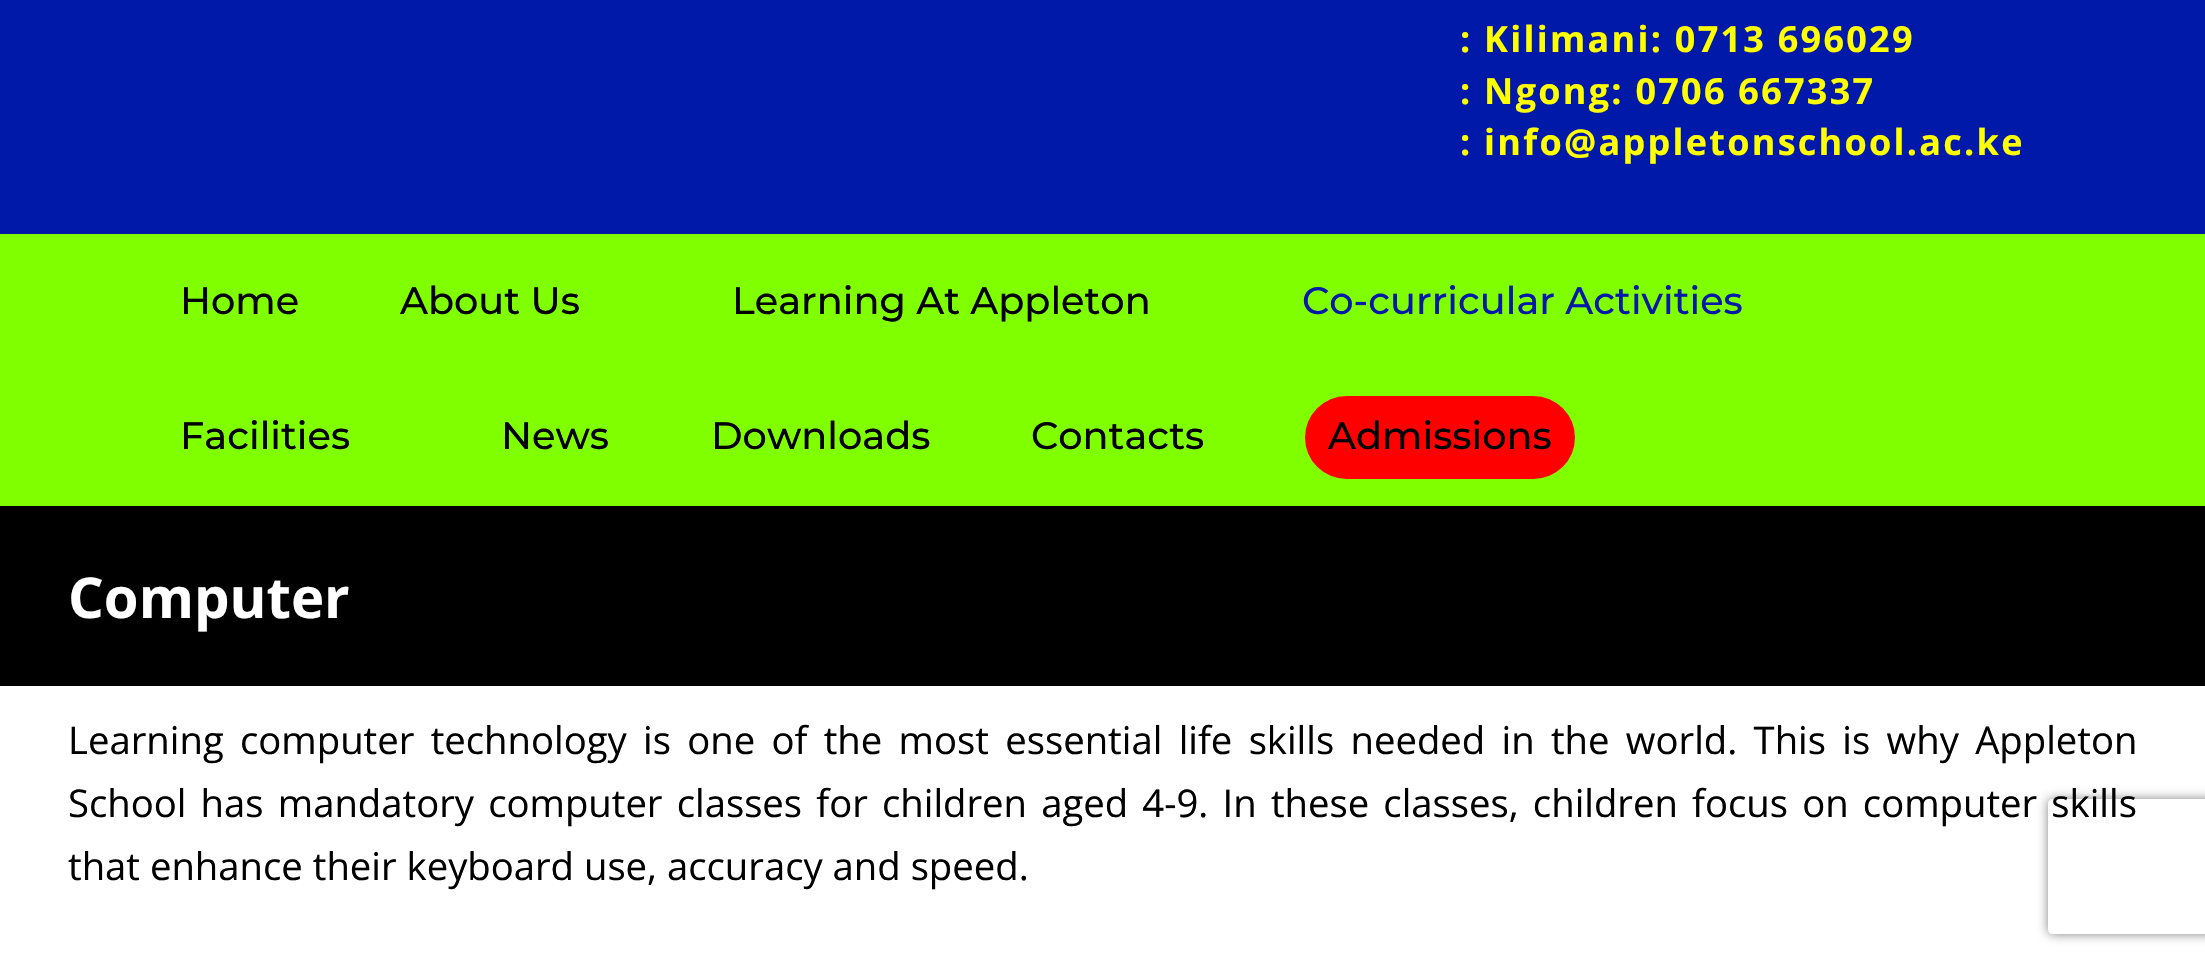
#include "include/core/SkBlurTypes.h"
#include "include/core/SkCanvas.h"
#include "include/core/SkData.h"
#include "include/core/SkFont.h"
#include "include/core/SkFontMgr.h"
#include "include/core/SkImage.h"
#include "include/core/SkMaskFilter.h"
#include "include/core/SkPaint.h"
#include "include/core/SkPathBuilder.h"
#include "include/core/SkTextBlob.h"
#include "include/effects/SkDashPathEffect.h"
#include "include/effects/SkGradientShader.h"
#include "include/utils/SkParsePath.h"

extern sk_sp<SkFontMgr> fontMgr;

static SkFont font(const char* family, int weight, float size, bool italic = false) {
    SkFontStyle style(weight, SkFontStyle::kNormal_Width,
        italic ? SkFontStyle::kItalic_Slant : SkFontStyle::kUpright_Slant);
    SkFont result(fontMgr->matchFamilyStyle(family, style), size);
    result.setSubpixel(true);
    return result;
}

static void drawLabel(SkCanvas* canvas, const char* s, float x, float y, const SkFont& font, SkColor color) {
    SkPaint ink(SkColor4f::FromColor(color));
    ink.setAntiAlias(true);
    canvas->drawString(s, x, y, font, ink);
}

static void drawTracked(SkCanvas* canvas, const char* s, float x, float y, const SkFont& font, const SkPaint& ink, float letter, float word) {
    std::vector<SkGlyphID> glyphs(font.countText(s, strlen(s), SkTextEncoding::kUTF8));
    std::vector<float> xs(glyphs.size());
    font.textToGlyphs(s, strlen(s), SkTextEncoding::kUTF8, glyphs);
    font.getXPos(glyphs, xs, x);
    float extra = 0;
    for (size_t i = 0; i < glyphs.size(); i++) {
        xs[i] += extra;
        extra += letter + word * (glyphs[i] == font.unicharToGlyph(' '));
    }
    canvas->drawTextBlob(SkTextBlob::MakeFromPosHGlyphs(glyphs, xs, y, font), 0, 0, ink);
}

static void fillRect(SkCanvas* canvas, float x, float y, float w, float h, SkColor color) {
    SkPaint ink(SkColor4f::FromColor(color));
    ink.setAntiAlias(true);
    canvas->drawRect(SkRect::MakeXYWH(x, y, w, h), ink);
}

static void fillRRect(SkCanvas* canvas, float x, float y, float w, float h, float radius, SkColor color) {
    SkPaint ink(SkColor4f::FromColor(color));
    ink.setAntiAlias(true);
    canvas->drawRoundRect(SkRect::MakeXYWH(x, y, w, h), radius, radius, ink);
}

static SkPath parsePath(const char* data, bool evenOdd = false) {
    SkPath result = *SkParsePath::FromSVGString(data);
    if (evenOdd) result.setFillType(SkPathFillType::kEvenOdd);
    return result;
}

void draw(SkCanvas* canvas) {
    SkPaint paint;
    paint.setAntiAlias(true);
    canvas->clear(0xFFFFFFFF);
    fillRect(canvas, 0, 0, 2205, 234, 0xFF0019A8);
    SkFont font1 = font("Open Sans", 700, 36);
    paint.setColor(0xFFFFFF00);
    drawTracked(canvas, ": Kilimani: 0713 696029", 1460, 52, font1, paint, 2.25f, 0);
    drawTracked(canvas, ": Ngong: 0706 667337", 1460, 104, font1, paint, 2.25f, 0);
    drawTracked(canvas, ": info@appletonschool.ac.ke", 1460, 155, font1, paint, 2.25f, 0);
    fillRect(canvas, 0, 234, 2205, 272, 0xFF7FFF00);
    SkFont font2 = font("Montserrat", 500, 38.25f);
    drawLabel(canvas, "Home", 180, 314, font2, 0xFF000000);
    drawLabel(canvas, "About Us", 400, 314, font2, 0xFF000000);
    drawLabel(canvas, "Learning At Appleton", 732, 314, font2, 0xFF000000);
    drawLabel(canvas, "Co-curricular Activities", 1302, 314, font2, 0xFF0019A8);
    drawLabel(canvas, "Facilities", 180, 449, font2, 0xFF000000);
    drawLabel(canvas, "News", 501, 449, font2, 0xFF000000);
    drawLabel(canvas, "Downloads", 711, 449, font2, 0xFF000000);
    drawLabel(canvas, "Contacts", 1031, 449, font2, 0xFF000000);
    fillRRect(canvas, 1305, 396, 270, 83, 41.5f, 0xFFFF0000);
    drawLabel(canvas, "Admissions", 1328, 449, font2, 0xFF000000);
    fillRect(canvas, 0, 506, 2205, 180, 0xFF000000);
    SkFont font3 = font("Open Sans", 700, 56.25f);
    drawLabel(canvas, "Computer", 68, 618, font3, 0xFFFFFFFF);
    SkFont font4 = font("Open Sans", 400, 38.25f);
    paint.setColor(0xFF000000);
    drawTracked(canvas, "Learning computer technology is one of the most essential life skills needed in the world. This is why Appleton", 68, 754, font4, paint, 0, 6.4f);
    canvas->save();
    canvas->clipPath(parsePath("M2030 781H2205V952H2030ZM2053 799H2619C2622 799 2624 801 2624 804V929C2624 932 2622 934 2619 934H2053C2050 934 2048 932 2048 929V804C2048 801 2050 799 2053 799Z", true), true);
    paint.setColor(0xFF808080);
    paint.setMaskFilter(SkMaskFilter::MakeBlur(kNormal_SkBlurStyle, 5.5f));
    canvas->drawRoundRect(SkRect::MakeXYWH(2048, 799, 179, 135), 5, 5, paint);
    paint.setMaskFilter(nullptr);
    canvas->restore();
    paint.setColor(0xFF000000);
    drawTracked(canvas, "School has mandatory computer classes for children aged 4-9. In these classes, children focus on computer skills", 68, 817, font4, paint, 0, 4.25f);
    drawLabel(canvas, "that enhance their keyboard use, accuracy and speed.", 68, 880, font4, 0xFF000000);
}
